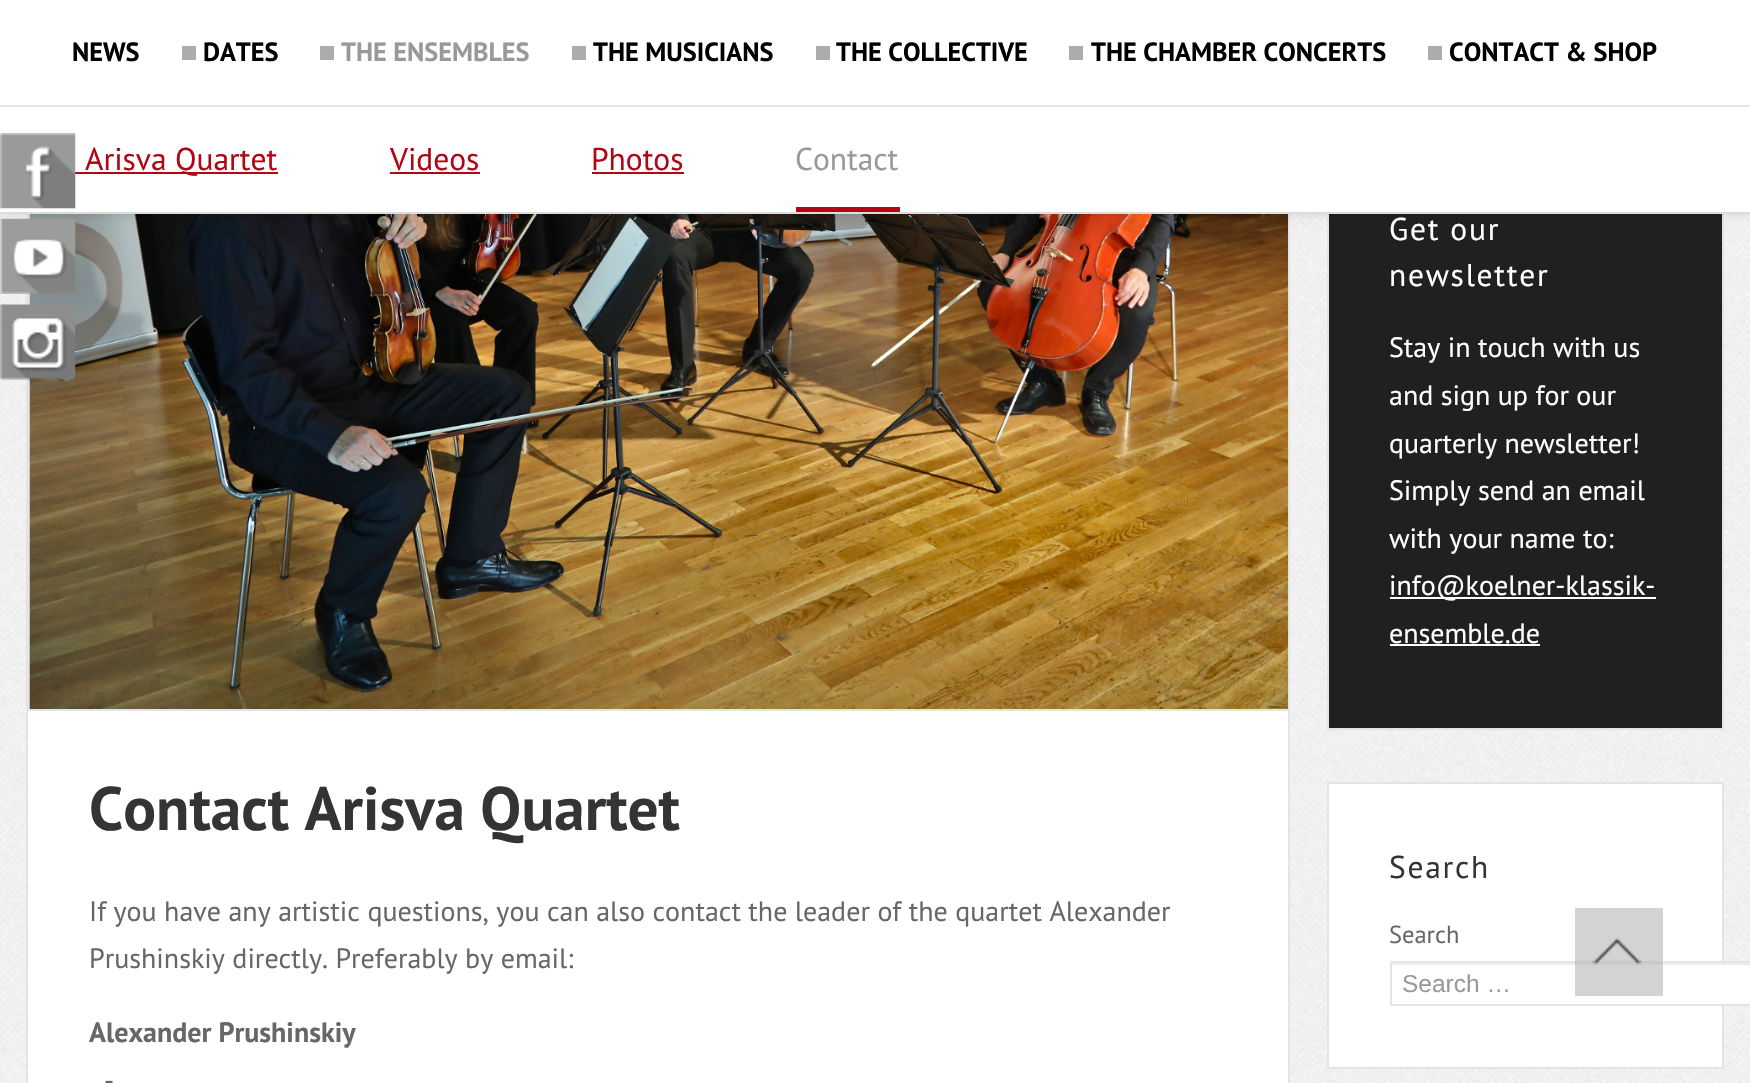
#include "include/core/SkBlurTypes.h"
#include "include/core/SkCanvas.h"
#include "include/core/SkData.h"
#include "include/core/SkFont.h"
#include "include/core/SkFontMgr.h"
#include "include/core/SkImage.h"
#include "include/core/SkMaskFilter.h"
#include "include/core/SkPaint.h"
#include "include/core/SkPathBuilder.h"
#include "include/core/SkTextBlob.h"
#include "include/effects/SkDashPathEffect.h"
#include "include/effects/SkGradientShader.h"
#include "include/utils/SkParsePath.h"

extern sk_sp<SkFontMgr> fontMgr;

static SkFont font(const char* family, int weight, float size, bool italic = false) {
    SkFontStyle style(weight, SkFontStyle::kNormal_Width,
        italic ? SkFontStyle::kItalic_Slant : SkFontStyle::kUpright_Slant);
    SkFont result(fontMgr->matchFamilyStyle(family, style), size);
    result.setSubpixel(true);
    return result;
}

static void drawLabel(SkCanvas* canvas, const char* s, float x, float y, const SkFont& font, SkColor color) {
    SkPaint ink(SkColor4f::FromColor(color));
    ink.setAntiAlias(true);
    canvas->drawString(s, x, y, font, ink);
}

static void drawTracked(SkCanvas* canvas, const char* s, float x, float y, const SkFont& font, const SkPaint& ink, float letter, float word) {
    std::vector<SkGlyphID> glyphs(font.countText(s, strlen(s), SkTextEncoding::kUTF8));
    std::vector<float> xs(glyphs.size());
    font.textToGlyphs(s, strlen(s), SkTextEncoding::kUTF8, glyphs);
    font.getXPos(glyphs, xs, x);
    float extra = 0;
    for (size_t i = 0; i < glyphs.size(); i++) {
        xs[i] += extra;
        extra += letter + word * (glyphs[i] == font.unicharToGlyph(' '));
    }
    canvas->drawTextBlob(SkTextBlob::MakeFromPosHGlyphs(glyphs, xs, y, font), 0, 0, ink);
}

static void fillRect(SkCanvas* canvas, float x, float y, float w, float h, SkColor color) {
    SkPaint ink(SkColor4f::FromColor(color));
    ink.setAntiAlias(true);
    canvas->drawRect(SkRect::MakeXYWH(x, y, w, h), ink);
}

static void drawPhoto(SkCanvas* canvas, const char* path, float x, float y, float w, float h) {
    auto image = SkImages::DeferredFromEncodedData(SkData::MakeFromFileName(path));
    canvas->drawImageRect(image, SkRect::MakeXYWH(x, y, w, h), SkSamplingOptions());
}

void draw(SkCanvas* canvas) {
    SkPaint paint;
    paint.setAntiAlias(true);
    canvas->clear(0xFFFFFFFF);
    drawPhoto(canvas, "assets/img1.png", 0, 214, 1750, 869);
    fillRect(canvas, 28, 711, 1260, 372, 0xFFFFFFFF);
    paint.setStroke(true);
    paint.setStrokeWidth(2);
    paint.setColor(0xFFE4E4E4);
    canvas->drawRect(SkRect::MakeXYWH(27, -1, 1262, 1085), paint);
    canvas->save();
    canvas->clipRect(SkRect::MakeXYWH(28, 0, 1260, 711));
    canvas->drawRect(SkRect::MakeXYWH(29, -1, 1262, 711), paint);
    canvas->restore();
    drawPhoto(canvas, "assets/img5.png", 29, 214, 1259, 495);
    fillRect(canvas, 1329, 214, 393, 514, 0xFF202020);
    canvas->drawRect(SkRect::MakeXYWH(1328, 145, 395, 584), paint);
    paint.setStroke(false);
    paint.setColor(0x1C000000);
    paint.setMaskFilter(SkMaskFilter::MakeBlur(kNormal_SkBlurStyle, 4.5f));
    canvas->drawRect(SkRect::MakeXYWH(0, 107, 1750, 108), paint);
    paint.setMaskFilter(nullptr);
    fillRect(canvas, 0, 0, 1750, 105, 0xFFFFFFFF);
    SkFont font1 = font("PT Sans", 700, 26.25f);
    drawLabel(canvas, "NEWS", 72, 61, font1, 0xFF000000);
    fillRect(canvas, 182, 46, 14, 14, 0xFFACACAC);
    drawLabel(canvas, "DATES", 203, 61, font1, 0xFF000000);
    fillRect(canvas, 320, 46, 14, 14, 0xFFACACAC);
    drawLabel(canvas, "THE ENSEMBLES", 341, 61, font1, 0xFF999999);
    fillRect(canvas, 572, 46, 14, 14, 0xFFACACAC);
    drawLabel(canvas, "THE MUSICIANS", 593, 61, font1, 0xFF000000);
    fillRect(canvas, 816, 46, 14, 14, 0xFFACACAC);
    drawLabel(canvas, "THE COLLECTIVE", 836, 61, font1, 0xFF000000);
    fillRect(canvas, 1069, 46, 14, 14, 0xFFACACAC);
    drawLabel(canvas, "THE CHAMBER CONCERTS", 1091, 61, font1, 0xFF000000);
    fillRect(canvas, 1428, 46, 14, 14, 0xFFACACAC);
    drawLabel(canvas, "CONTACT & SHOP", 1449, 61, font1, 0xFF000000);
    fillRect(canvas, 0, 107, 1750, 105, 0xFFFFFFFF);
    fillRect(canvas, 75, 172, 203, 2, 0xFFB20614);
    drawPhoto(canvas, "assets/img2.png", 0, 133, 76, 76);
    drawPhoto(canvas, "assets/img3.png", 0, 218, 76, 76);
    drawPhoto(canvas, "assets/img4.png", 0, 304, 76, 76);
    fillRect(canvas, 0, 105, 1750, 2, 0xFFE4E4E4);
    fillRect(canvas, 0, 212, 1750, 2, 0xFFDCDCDC);
    SkFont font2 = font("PT Sans", 400, 31.5f);
    drawLabel(canvas, "Arisva Quartet", 85, 170, font2, 0xFFB20614);
    drawLabel(canvas, "Videos", 390, 170, font2, 0xFFB20614);
    fillRect(canvas, 390, 172, 90, 2, 0xFFB20614);
    drawLabel(canvas, "Photos", 591, 170, font2, 0xFFB20614);
    fillRect(canvas, 592, 172, 92, 2, 0xFFB20614);
    drawLabel(canvas, "Contact", 795, 170, font2, 0xFF999999);
    fillRect(canvas, 796, 207, 104, 5, 0xFFB20614);
    SkFont font3 = font("PT Sans", 700, 61.25f);
    drawLabel(canvas, "Contact Arisva Quartet", 89, 830, font3, 0xFF343434);
    SkFont font4 = font("PT Sans", 400, 28);
    drawLabel(canvas, "If you have any artistic questions, you can also contact the leader of the quartet Alexander", 89, 921, font4, 0xFF676767);
    drawLabel(canvas, "Prushinskiy directly. Preferably by email:", 89, 968, font4, 0xFF676767);
    SkFont font5 = font("PT Sans", 700, 28);
    drawLabel(canvas, "Alexander Prushinskiy", 89, 1042, font5, 0xFF676767);
    drawLabel(canvas, "-", 104, 1090, font4, 0xFF676767);
    paint.setColor(0xFFFFFFFF);
    drawTracked(canvas, "Get our", 1389, 240, font2, paint, 1.75f, 0);
    drawTracked(canvas, "newsletter", 1389, 286, font2, paint, 1.75f, 0);
    drawLabel(canvas, "Stay in touch with us", 1389, 357, font4, 0xFFFFFFFF);
    drawLabel(canvas, "and sign up for our", 1389, 405, font4, 0xFFFFFFFF);
    drawLabel(canvas, "quarterly newsletter!", 1389, 453, font4, 0xFFFFFFFF);
    drawLabel(canvas, "Simply send an email", 1389, 500, font4, 0xFFFFFFFF);
    drawLabel(canvas, "with your name to:", 1389, 548, font4, 0xFFFFFFFF);
    fillRect(canvas, 1390, 597, 266, 2, 0xFFFFFFFF);
    drawLabel(canvas, "info@koelner-klassik-", 1389, 595, font4, 0xFFFFFFFF);
    drawLabel(canvas, "ensemble.de", 1389, 643, font4, 0xFFFFFFFF);
    fillRect(canvas, 1390, 644, 150, 2, 0xFFFFFFFF);
    canvas->drawRect(SkRect::MakeXYWH(1328, 783, 395, 285), paint);
    paint.setStroke(true);
    paint.setColor(0xFFE4E4E4);
    canvas->drawRect(SkRect::MakeXYWH(1328, 783, 395, 285), paint);
    paint.setStroke(false);
    paint.setColor(0xFF343434);
    drawTracked(canvas, "Search", 1389, 878, font2, paint, 1.75f, 0);
    SkFont font6 = font("PT Sans", 400, 24.5f);
    drawLabel(canvas, "Search", 1389, 943, font6, 0xFF676767);
    fillRect(canvas, 1722, 965, 28, 39, 0xFFFFFFFF);
    fillRect(canvas, 1391, 963, 359, 2, 0xFFECECEC);
    paint.setStroke(true);
    paint.setColor(0xFFE4E4E4);
    canvas->drawRect(SkRect::MakeXYWH(1391, 962, 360, 43), paint);
    SkFont font7 = font("Liberation Sans", 400, 24.5f);
    drawLabel(canvas, "Search …", 1402, 992, font7, 0xFF999999);
    fillRect(canvas, 1575, 908, 88, 88, 0x99B5B5B5);
    drawPhoto(canvas, "assets/img6.png", 1592, 937, 50, 28);
}
